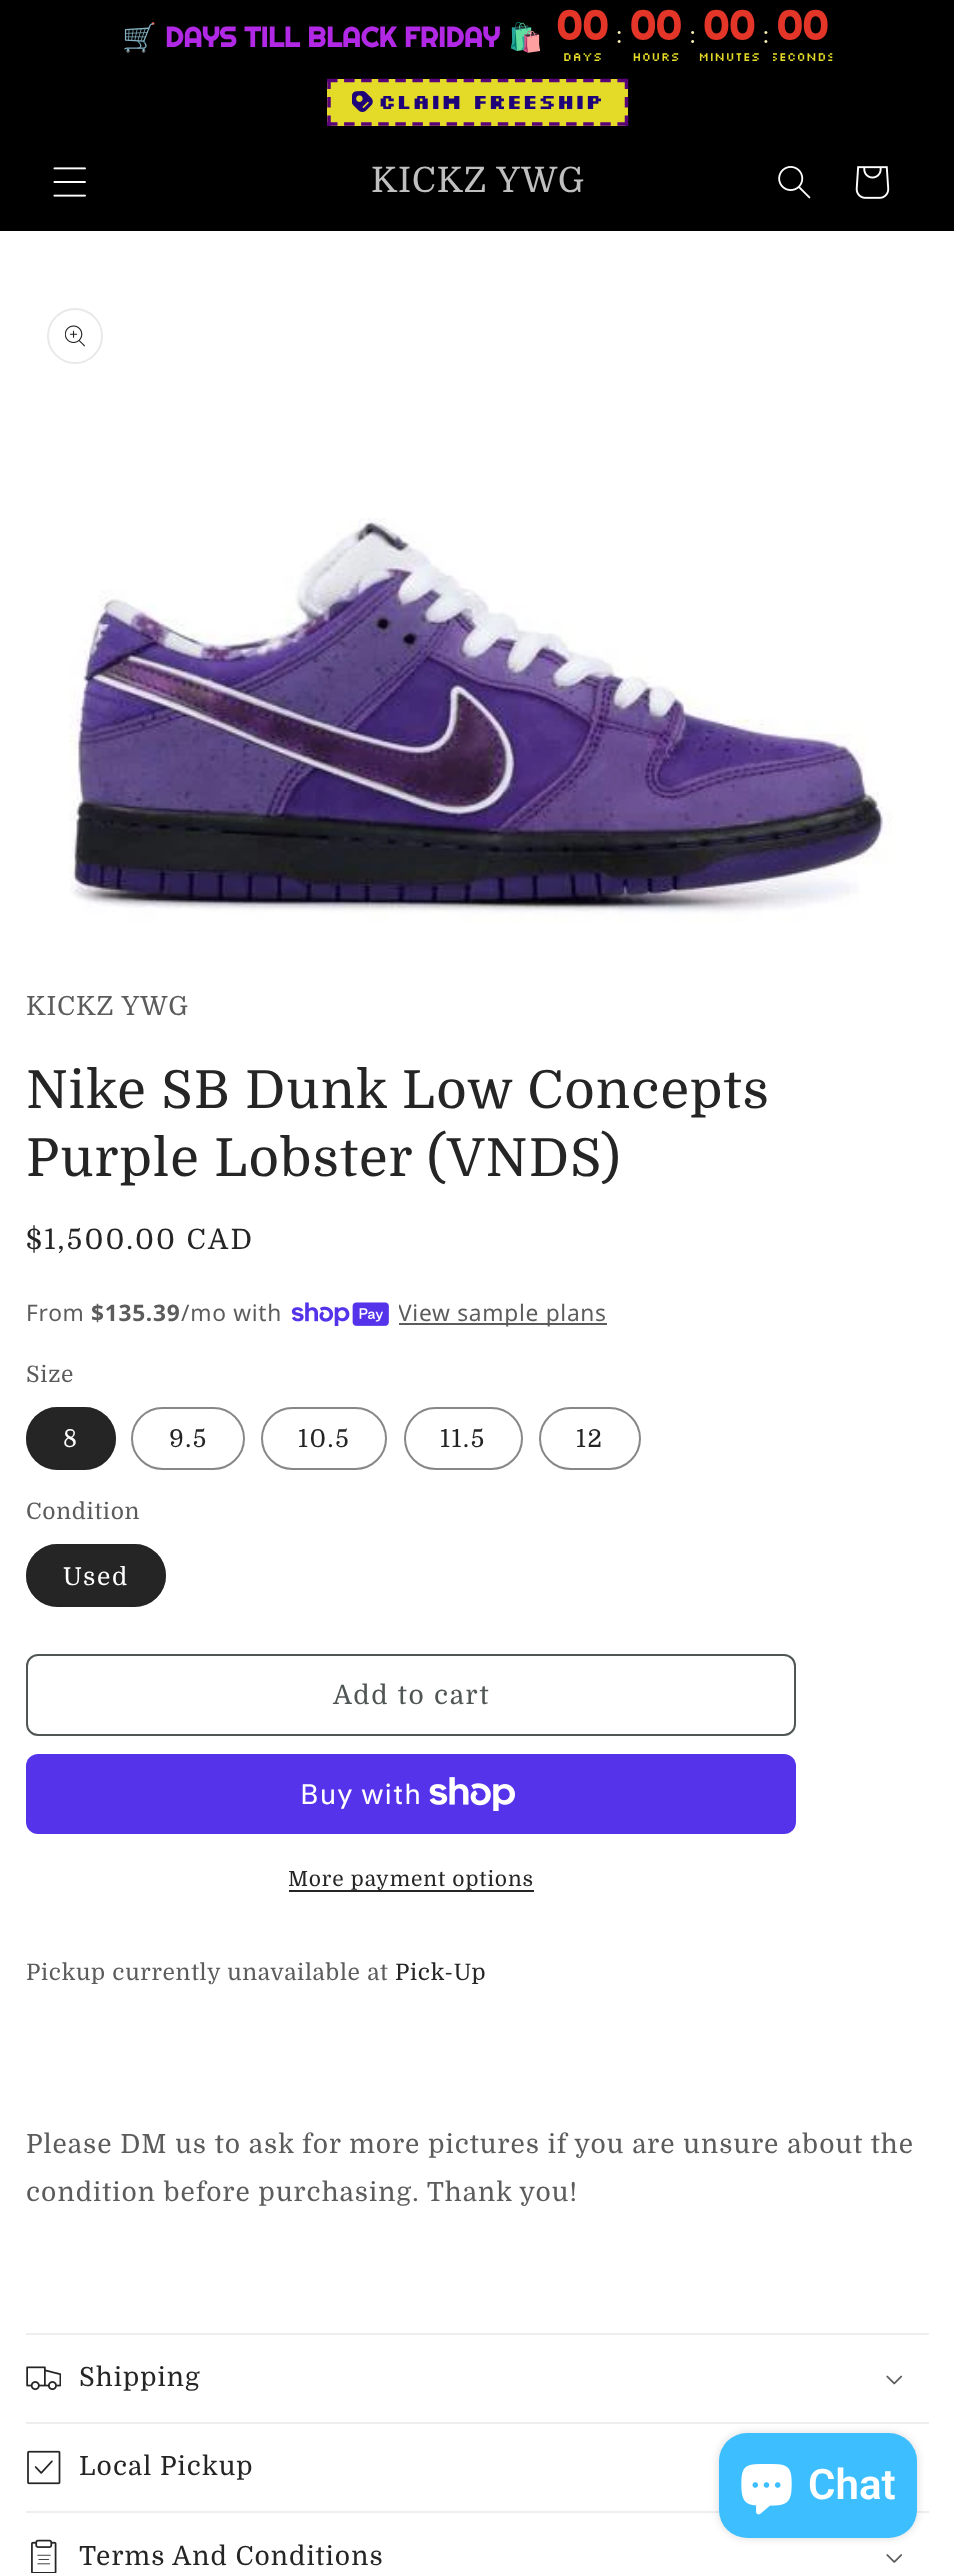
<!DOCTYPE html>
<meta charset="utf-8">
<style>body { margin: 0 } canvas { display: block }</style>
<canvas id="canvas" width="954" height="2573"></canvas>
<script type="module">
  const canvas = document.getElementById("canvas");
  const ctx = canvas.getContext("2d");
  ctx.miterLimit = 4;
  ctx.fontKerning = "normal";
  async function loadImage(src) {
    const img = new Image();
    img.src = src;
    await img.decode();
    return img;
  }

  ctx.fillStyle = "#ffffff";
  ctx.fillRect(0, 0, 954, 2573);
  ctx.fillStyle = "#000000";
  ctx.fillRect(0, 0, 954, 231);
  ctx.font = "bold 28px Noto Color Emoji";
  ctx.fillStyle = "#b129e4";
  ctx.fillText("🛒", 122, 47);
  ctx.font = "bold 28px Righteous";
  ctx.fillText("DAYS TILL BLACK FRIDAY", 165, 47);
  ctx.font = "bold 28px Noto Color Emoji";
  ctx.fillText("🛍", 508, 47);
  ctx.drawImage(await loadImage("img1.png"), 557, 9, 276, 52);
  ctx.fillStyle = "#e4db29";
  ctx.fillRect(327, 79, 301, 47);
  ctx.beginPath();
  ctx.moveTo(327, 80.5);
  ctx.lineTo(628, 80.5);
  ctx.strokeStyle = "#590379";
  ctx.lineWidth = 3.5;
  ctx.setLineDash([10.5, 6.58]);
  ctx.stroke();
  ctx.beginPath();
  ctx.moveTo(626.5, 79);
  ctx.lineTo(626.5, 89);
  ctx.moveTo(626.5, 97);
  ctx.lineTo(626.5, 107.5);
  ctx.moveTo(626.5, 115.5);
  ctx.lineTo(626.5, 126);
  ctx.setLineDash([]);
  ctx.stroke();
  ctx.beginPath();
  ctx.moveTo(327, 124);
  ctx.lineTo(628, 124);
  ctx.setLineDash([10.5, 6.58]);
  ctx.stroke();
  ctx.beginPath();
  ctx.moveTo(329, 79);
  ctx.lineTo(329, 89);
  ctx.moveTo(329, 97);
  ctx.lineTo(329, 107.5);
  ctx.moveTo(329, 115.5);
  ctx.lineTo(329, 126);
  ctx.setLineDash([]);
  ctx.stroke();
  ctx.drawImage(await loadImage("img2.png"), 352, 91, 21, 21);
  ctx.font = "bold 21px Silkscreen";
  ctx.fillStyle = "#1e0379";
  ctx.fillText("CLAIM FREESHIP", 378, 109);
  ctx.drawImage(await loadImage("img3.png"), 53, 167, 33, 30);
  ctx.letterSpacing = "1.05px";
  ctx.font = "35px Domine";
  ctx.fillStyle = "#bfbfbf";
  ctx.fillText("KICKZ YWG", 371, 192);
  ctx.drawImage(await loadImage("img4.png"), 778, 166, 33, 33);
  ctx.drawImage(await loadImage("img5.png"), 855, 166, 35, 33);
  ctx.beginPath();
  ctx.arc(75, 336, 27, 0, Math.PI * 2);
  ctx.strokeStyle = "#e9e9e9";
  ctx.lineWidth = 2;
  ctx.stroke();
  ctx.drawImage(await loadImage("img6.png"), 65, 325, 20, 22);
  ctx.drawImage(await loadImage("img7.png"), 69, 518, 824, 404);
  ctx.font = "26.25px Domine";
  ctx.fillStyle = "#5c5c5c";
  ctx.fillText("KICKZ YWG", 26, 1015);
  ctx.font = "52.5px Domine";
  ctx.fillStyle = "#252525";
  ctx.fillText("Nike SB Dunk Low Concepts", 26, 1108);
  ctx.fillText("Purple Lobster (VNDS)", 26, 1176);
  ctx.letterSpacing = "2.25px";
  ctx.font = "28px Domine";
  ctx.fillText("$1,500.00 CAD", 26, 1249);
  ctx.letterSpacing = "0.7px";
  ctx.font = "22.75px Noto Sans";
  ctx.fillStyle = "#5c5c5c";
  ctx.fillText("From", 26, 1321);
  ctx.font = "bold 22.75px Noto Sans";
  ctx.fillText("$135.39", 91, 1321);
  ctx.font = "22.75px Noto Sans";
  ctx.fillText("/mo with", 181, 1321);
  ctx.drawImage(await loadImage("img8.png"), 291, 1302, 98, 24);
  ctx.fillRect(399, 1323, 208, 2);
  ctx.save();
  ctx.beginPath();
  ctx.rect(399, 1297, 208, 33);
  ctx.clip();
  ctx.fillText("View sample plans", 398, 1321);
  ctx.restore();
  ctx.font = "22.75px Domine";
  ctx.fillText("Size", 26, 1382);
  ctx.fillStyle = "#252525";
  ctx.beginPath();
  ctx.roundRect(26, 1407, 90, 63, 31.5);
  ctx.fill();
  ctx.beginPath();
  ctx.roundRect(27, 1408, 88, 61, 30.5);
  ctx.strokeStyle = "rgba(37, 37, 37, 0.55)";
  ctx.stroke();
  ctx.letterSpacing = "1.75px";
  ctx.font = "24.5px Domine";
  ctx.fillStyle = "#ffffff";
  ctx.fillText("8", 63, 1447);
  ctx.beginPath();
  ctx.roundRect(132, 1408, 112, 61, 30.5);
  ctx.strokeStyle = "#878787";
  ctx.stroke();
  ctx.fillStyle = "#252525";
  ctx.fillText("9.5", 169, 1447);
  ctx.beginPath();
  ctx.roundRect(262, 1408, 124, 61, 30.5);
  ctx.stroke();
  ctx.fillText("10.5", 298, 1447);
  ctx.beginPath();
  ctx.roundRect(405, 1408, 117, 61, 30.5);
  ctx.stroke();
  ctx.fillText("11.5", 440, 1447);
  ctx.beginPath();
  ctx.roundRect(540, 1408, 100, 61, 30.5);
  ctx.stroke();
  ctx.fillText("12", 576, 1447);
  ctx.letterSpacing = "0.7px";
  ctx.font = "22.75px Domine";
  ctx.fillStyle = "#5c5c5c";
  ctx.fillText("Condition", 26, 1519);
  ctx.fillStyle = "#252525";
  ctx.beginPath();
  ctx.roundRect(26, 1544, 140, 63, 31.5);
  ctx.fill();
  ctx.beginPath();
  ctx.roundRect(27, 1545, 138, 61, 30.5);
  ctx.strokeStyle = "rgba(37, 37, 37, 0.55)";
  ctx.stroke();
  ctx.letterSpacing = "1.75px";
  ctx.font = "24.5px Domine";
  ctx.fillStyle = "#ffffff";
  ctx.fillText("Used", 63, 1585);
  ctx.beginPath();
  ctx.roundRect(27, 1655, 768, 80, 11);
  ctx.strokeStyle = "#505655";
  ctx.stroke();
  ctx.font = "26.25px Domine";
  ctx.fillStyle = "#505655";
  ctx.fillText("Add to cart", 333, 1704);
  ctx.fillStyle = "#5433eb";
  ctx.beginPath();
  ctx.roundRect(26, 1754, 770, 80, 12);
  ctx.fill();
  ctx.letterSpacing = "1.05px";
  ctx.font = "28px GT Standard";
  ctx.fillStyle = "#ffffff";
  ctx.fillText("Buy with", 300, 1804);
  ctx.drawImage(await loadImage("img9.png"), 429, 1777, 86, 34);
  ctx.letterSpacing = "0.9px";
  ctx.font = "21px Domine";
  ctx.fillStyle = "#252525";
  ctx.fillText("More payment options", 288, 1886);
  ctx.fillRect(289, 1890, 245, 2);
  ctx.letterSpacing = "0.7px";
  ctx.font = "22.75px Domine";
  ctx.fillStyle = "#5c5c5c";
  ctx.fillText("Pickup currently unavailable at", 26, 1980);
  ctx.fillStyle = "#252525";
  ctx.fillText("Pick-Up", 395, 1980);
  ctx.letterSpacing = "1.05px";
  ctx.font = "26.25px Domine";
  ctx.fillStyle = "#5c5c5c";
  ctx.fillText("Please DM us to ask for more pictures if you are unsure about the", 26, 2153);
  ctx.fillText("condition before purchasing. Thank you!", 26, 2201);
  ctx.fillStyle = "#eeeeee";
  ctx.fillRect(26, 2333, 903, 2);
  ctx.fillRect(26, 2422, 903, 2);
  ctx.drawImage(await loadImage("img10.png"), 26, 2366, 35, 25);
  ctx.fillStyle = "#252525";
  ctx.fillText("Shipping", 79, 2386);
  ctx.drawImage(await loadImage("img11.png"), 886, 2375, 17, 10);
  ctx.fillStyle = "#eeeeee";
  ctx.fillRect(26, 2511, 903, 2);
  ctx.drawImage(await loadImage("img12.png"), 27, 2450, 34, 35);
  ctx.fillStyle = "#252525";
  ctx.fillText("Local Pickup", 79, 2475);
  ctx.drawImage(await loadImage("img13.png"), 31, 2539, 26, 34);
  ctx.fillText("Terms And Conditions", 79, 2565);
  ctx.drawImage(await loadImage("img14.png"), 886, 2554, 16, 9);
  ctx.fillStyle = "rgba(0, 0, 0, 0.15)";
  ctx.filter = "blur(4.5px)";
  ctx.beginPath();
  ctx.roundRect(719, 2433, 198, 105, 28);
  ctx.fill();
  ctx.filter = "none";
  ctx.fillStyle = "#3dbfff";
  ctx.beginPath();
  ctx.roundRect(719, 2433, 198, 105, 28);
  ctx.fill();
  ctx.drawImage(await loadImage("img15.png"), 741, 2464, 51, 51);
  ctx.letterSpacing = "0px";
  ctx.font = "600 42px Roboto";
  ctx.fillStyle = "#ffffff";
  ctx.fillText("Chat", 808, 2499);
</script>
